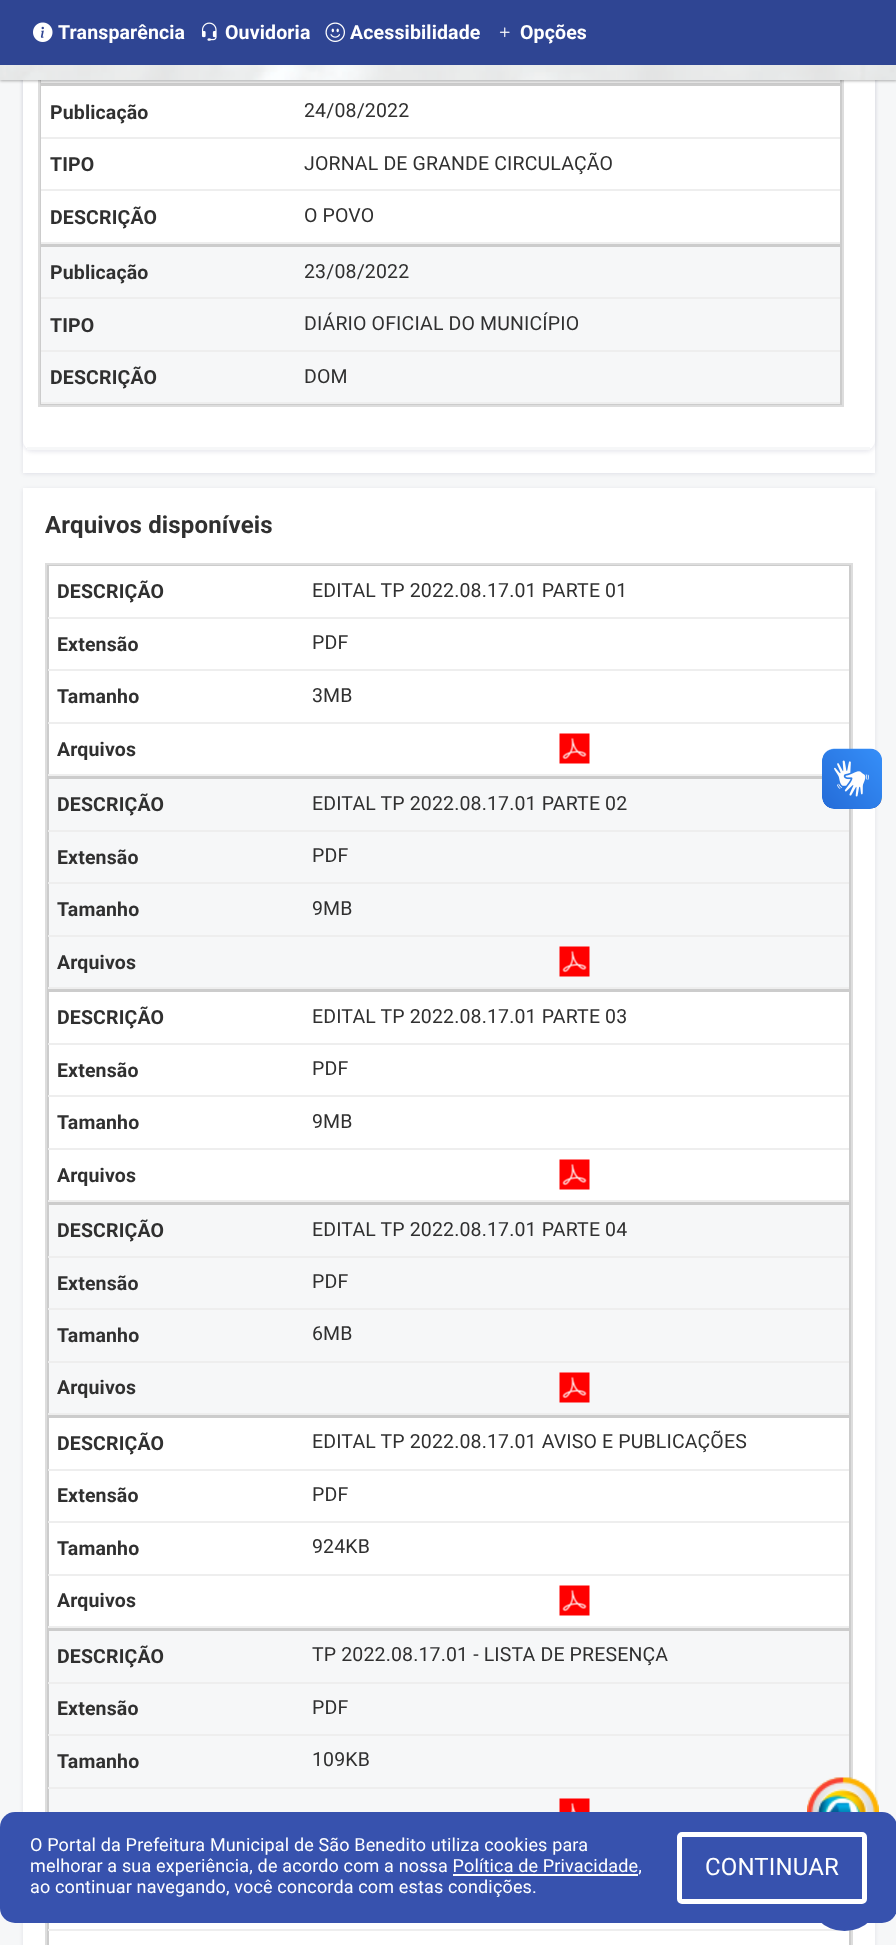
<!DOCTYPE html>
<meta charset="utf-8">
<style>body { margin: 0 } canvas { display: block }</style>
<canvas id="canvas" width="896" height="1945"></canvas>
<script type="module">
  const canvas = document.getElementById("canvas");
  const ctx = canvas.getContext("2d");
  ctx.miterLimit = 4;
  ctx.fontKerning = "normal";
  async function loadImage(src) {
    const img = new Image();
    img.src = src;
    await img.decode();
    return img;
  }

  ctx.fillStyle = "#f6f7f8";
  ctx.fillRect(0, 0, 896, 1945);
  ctx.fillStyle = "rgba(3, 0, 71, 0.09)";
  ctx.filter = "blur(2px)";
  ctx.beginPath();
  ctx.rect(23, -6, 852, 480);
  ctx.fill();
  ctx.filter = "none";
  ctx.fillStyle = "#ffffff";
  ctx.fillRect(23, 441, 852, 32);
  ctx.fillStyle = "rgba(3, 0, 71, 0.09)";
  ctx.filter = "blur(2px)";
  ctx.beginPath();
  ctx.roundRect(23, -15, 852, 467, 9);
  ctx.fill();
  ctx.filter = "none";
  ctx.fillStyle = "#ffffff";
  ctx.beginPath();
  ctx.roundRect(23, -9, 852, 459, 9);
  ctx.fill();
  ctx.fillStyle = "#dddddd";
  ctx.fillRect(842, 80, 2, 327);
  ctx.fillRect(38, 405, 805, 2);
  ctx.fillStyle = "#f6f7f8";
  ctx.fillRect(41, 80, 799, 1);
  ctx.strokeStyle = "#cccccc";
  ctx.lineWidth = 2;
  ctx.strokeRect(40, -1, 801, 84);
  ctx.strokeRect(40, 85, 801, 159);
  ctx.fillRect(41, 247, 799, 155);
  ctx.strokeRect(40, 246, 801, 158);
  ctx.fillStyle = "#dddddd";
  ctx.fillRect(38, 80, 2, 327);
  ctx.fillStyle = "#eeeeee";
  ctx.fillRect(41, 81, 799, 2);
  ctx.fillStyle = "rgba(0, 0, 0, 0.3)";
  ctx.filter = "blur(1.5px)";
  ctx.beginPath();
  ctx.rect(0, 2, 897, 79);
  ctx.fill();
  ctx.filter = "none";
  ctx.drawImage(await loadImage("img1.png"), 0, 65, 896, 15);
  ctx.fillStyle = "#2f4593";
  ctx.fillRect(0, 0, 896, 65);
  ctx.drawImage(await loadImage("img2.png"), 33, 22, 20, 20);
  ctx.letterSpacing = "0.15px";
  ctx.font = "bold 19.5px Roboto";
  ctx.fillStyle = "#ffffff";
  ctx.fillText("Transparência", 58, 39);
  ctx.drawImage(await loadImage("img3.png"), 201, 22, 16, 19);
  ctx.fillText("Ouvidoria", 225, 39);
  ctx.drawImage(await loadImage("img4.png"), 325, 22, 20, 20);
  ctx.fillText("Acessibilidade", 350, 39);
  ctx.drawImage(await loadImage("img5.png"), 499, 27, 11, 11);
  ctx.fillText("Opções", 520, 39);
  ctx.fillStyle = "#f6f7f8";
  ctx.fillRect(27, 447, 843, 3);
  ctx.fillStyle = "#eeeeee";
  ctx.fillRect(41, 137, 799, 2);
  ctx.fillStyle = "#303030";
  ctx.fillText("Publicação", 50, 119);
  ctx.font = "19.5px Roboto";
  ctx.fillText("24/08/2022", 304, 117);
  ctx.fillStyle = "#eeeeee";
  ctx.fillRect(41, 189, 799, 2);
  ctx.font = "bold 19.5px Roboto";
  ctx.fillStyle = "#303030";
  ctx.fillText("TIPO", 50, 171);
  ctx.font = "19.5px Roboto";
  ctx.fillText("JORNAL DE GRANDE CIRCULAÇÃO", 304, 170);
  ctx.fillStyle = "#eeeeee";
  ctx.fillRect(41, 242, 799, 2);
  ctx.font = "bold 19.5px Roboto";
  ctx.fillStyle = "#303030";
  ctx.fillText("DESCRIÇÃO", 50, 224);
  ctx.font = "19.5px Roboto";
  ctx.fillText("O POVO", 304, 222);
  ctx.fillStyle = "#eeeeee";
  ctx.fillRect(41, 297, 799, 2);
  ctx.font = "bold 19.5px Roboto";
  ctx.fillStyle = "#303030";
  ctx.fillText("Publicação", 50, 279);
  ctx.font = "19.5px Roboto";
  ctx.fillText("23/08/2022", 304, 278);
  ctx.fillStyle = "#eeeeee";
  ctx.fillRect(41, 350, 799, 2);
  ctx.font = "bold 19.5px Roboto";
  ctx.fillStyle = "#303030";
  ctx.fillText("TIPO", 50, 332);
  ctx.font = "19.5px Roboto";
  ctx.fillText("DIÁRIO OFICIAL DO MUNICÍPIO", 304, 330);
  ctx.fillStyle = "#eeeeee";
  ctx.fillRect(41, 402, 799, 2);
  ctx.font = "bold 19.5px Roboto";
  ctx.fillStyle = "#303030";
  ctx.fillText("DESCRIÇÃO", 50, 384);
  ctx.font = "19.5px Roboto";
  ctx.fillText("DOM", 304, 383);
  ctx.fillStyle = "rgba(3, 0, 71, 0.09)";
  ctx.filter = "blur(2px)";
  ctx.beginPath();
  ctx.rect(23, 489, 852, 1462);
  ctx.fill();
  ctx.filter = "none";
  ctx.fillStyle = "#ffffff";
  ctx.fillRect(23, 488, 852, 1457);
  ctx.font = "bold 24px Roboto";
  ctx.fillStyle = "#303030";
  ctx.fillText("Arquivos disponíveis", 45, 533);
  ctx.strokeRect(48, 565, 802, 211);
  ctx.fillStyle = "#dddddd";
  ctx.fillRect(45, 563, 807, 2);
  ctx.fillRect(851, 563, 2, 1382);
  ctx.fillRect(45, 563, 2, 1382);
  ctx.fillStyle = "#eeeeee";
  ctx.fillRect(48, 617, 801, 2);
  ctx.font = "bold 19.5px Roboto";
  ctx.fillStyle = "#303030";
  ctx.fillText("DESCRIÇÃO", 57, 598);
  ctx.font = "19.5px Roboto";
  ctx.fillText("EDITAL TP 2022.08.17.01 PARTE 01", 312, 597);
  ctx.fillStyle = "#eeeeee";
  ctx.fillRect(48, 669, 801, 2);
  ctx.font = "bold 19.5px Roboto";
  ctx.fillStyle = "#303030";
  ctx.fillText("Extensão", 57, 651);
  ctx.font = "19.5px Roboto";
  ctx.fillText("PDF", 312, 649);
  ctx.fillStyle = "#eeeeee";
  ctx.fillRect(48, 722, 801, 2);
  ctx.font = "bold 19.5px Roboto";
  ctx.fillStyle = "#303030";
  ctx.fillText("Tamanho", 57, 703);
  ctx.font = "19.5px Roboto";
  ctx.fillText("3MB", 312, 702);
  ctx.fillStyle = "#eeeeee";
  ctx.fillRect(48, 774, 774, 2);
  ctx.font = "bold 19.5px Roboto";
  ctx.fillStyle = "#303030";
  ctx.fillText("Arquivos", 57, 756);
  ctx.drawImage(await loadImage("img6.png"), 559, 733, 31, 31);
  ctx.fillStyle = "#f6f7f8";
  ctx.fillRect(49, 779, 800, 208);
  ctx.strokeRect(48, 778, 802, 211);
  ctx.fillStyle = "#eeeeee";
  ctx.fillRect(48, 830, 801, 2);
  ctx.fillStyle = "#303030";
  ctx.fillText("DESCRIÇÃO", 57, 811);
  ctx.font = "19.5px Roboto";
  ctx.fillText("EDITAL TP 2022.08.17.01 PARTE 02", 312, 810);
  ctx.fillStyle = "#eeeeee";
  ctx.fillRect(48, 882, 801, 2);
  ctx.font = "bold 19.5px Roboto";
  ctx.fillStyle = "#303030";
  ctx.fillText("Extensão", 57, 864);
  ctx.font = "19.5px Roboto";
  ctx.fillText("PDF", 312, 862);
  ctx.fillStyle = "#eeeeee";
  ctx.fillRect(48, 935, 801, 2);
  ctx.font = "bold 19.5px Roboto";
  ctx.fillStyle = "#303030";
  ctx.fillText("Tamanho", 57, 916);
  ctx.font = "19.5px Roboto";
  ctx.fillText("9MB", 312, 915);
  ctx.fillStyle = "#eeeeee";
  ctx.fillRect(48, 987, 801, 2);
  ctx.font = "bold 19.5px Roboto";
  ctx.fillStyle = "#303030";
  ctx.fillText("Arquivos", 57, 969);
  ctx.drawImage(await loadImage("img7.png"), 559, 946, 31, 31);
  ctx.strokeRect(48, 991, 802, 211);
  ctx.fillStyle = "#eeeeee";
  ctx.fillRect(48, 1043, 801, 2);
  ctx.fillStyle = "#303030";
  ctx.fillText("DESCRIÇÃO", 57, 1024);
  ctx.font = "19.5px Roboto";
  ctx.fillText("EDITAL TP 2022.08.17.01 PARTE 03", 312, 1023);
  ctx.fillStyle = "#eeeeee";
  ctx.fillRect(48, 1095, 801, 2);
  ctx.font = "bold 19.5px Roboto";
  ctx.fillStyle = "#303030";
  ctx.fillText("Extensão", 57, 1077);
  ctx.font = "19.5px Roboto";
  ctx.fillText("PDF", 312, 1075);
  ctx.fillStyle = "#eeeeee";
  ctx.fillRect(48, 1148, 801, 2);
  ctx.font = "bold 19.5px Roboto";
  ctx.fillStyle = "#303030";
  ctx.fillText("Tamanho", 57, 1129);
  ctx.font = "19.5px Roboto";
  ctx.fillText("9MB", 312, 1128);
  ctx.fillStyle = "#eeeeee";
  ctx.fillRect(48, 1200, 801, 2);
  ctx.font = "bold 19.5px Roboto";
  ctx.fillStyle = "#303030";
  ctx.fillText("Arquivos", 57, 1182);
  ctx.drawImage(await loadImage("img6.png"), 559, 1159, 31, 31);
  ctx.fillStyle = "#f6f7f8";
  ctx.fillRect(49, 1205, 800, 208);
  ctx.strokeRect(48, 1204, 802, 211);
  ctx.fillStyle = "#eeeeee";
  ctx.fillRect(48, 1256, 801, 2);
  ctx.fillStyle = "#303030";
  ctx.fillText("DESCRIÇÃO", 57, 1237);
  ctx.font = "19.5px Roboto";
  ctx.fillText("EDITAL TP 2022.08.17.01 PARTE 04", 312, 1236);
  ctx.fillStyle = "#eeeeee";
  ctx.fillRect(48, 1308, 801, 2);
  ctx.font = "bold 19.5px Roboto";
  ctx.fillStyle = "#303030";
  ctx.fillText("Extensão", 57, 1290);
  ctx.font = "19.5px Roboto";
  ctx.fillText("PDF", 312, 1288);
  ctx.fillStyle = "#eeeeee";
  ctx.fillRect(48, 1361, 801, 2);
  ctx.font = "bold 19.5px Roboto";
  ctx.fillStyle = "#303030";
  ctx.fillText("Tamanho", 57, 1342);
  ctx.font = "19.5px Roboto";
  ctx.fillText("6MB", 312, 1340);
  ctx.fillStyle = "#eeeeee";
  ctx.fillRect(48, 1413, 801, 2);
  ctx.font = "bold 19.5px Roboto";
  ctx.fillStyle = "#303030";
  ctx.fillText("Arquivos", 57, 1394);
  ctx.drawImage(await loadImage("img7.png"), 559, 1372, 31, 31);
  ctx.strokeRect(48, 1417, 802, 211);
  ctx.fillStyle = "#eeeeee";
  ctx.fillRect(48, 1469, 801, 2);
  ctx.fillStyle = "#303030";
  ctx.fillText("DESCRIÇÃO", 57, 1450);
  ctx.font = "19.5px Roboto";
  ctx.fillText("EDITAL TP 2022.08.17.01 AVISO E PUBLICAÇÕES", 312, 1448);
  ctx.fillStyle = "#eeeeee";
  ctx.fillRect(48, 1521, 801, 2);
  ctx.font = "bold 19.5px Roboto";
  ctx.fillStyle = "#303030";
  ctx.fillText("Extensão", 57, 1502);
  ctx.font = "19.5px Roboto";
  ctx.fillText("PDF", 312, 1501);
  ctx.fillStyle = "#eeeeee";
  ctx.fillRect(48, 1574, 801, 2);
  ctx.font = "bold 19.5px Roboto";
  ctx.fillStyle = "#303030";
  ctx.fillText("Tamanho", 57, 1555);
  ctx.font = "19.5px Roboto";
  ctx.fillText("924KB", 312, 1553);
  ctx.fillStyle = "#eeeeee";
  ctx.fillRect(48, 1626, 801, 2);
  ctx.font = "bold 19.5px Roboto";
  ctx.fillStyle = "#303030";
  ctx.fillText("Arquivos", 57, 1607);
  ctx.drawImage(await loadImage("img6.png"), 559, 1585, 31, 31);
  ctx.fillStyle = "#f6f7f8";
  ctx.fillRect(49, 1631, 800, 181);
  ctx.strokeRect(48, 1630, 802, 211);
  ctx.fillStyle = "#eeeeee";
  ctx.fillRect(48, 1682, 801, 2);
  ctx.fillStyle = "#303030";
  ctx.fillText("DESCRIÇÃO", 57, 1663);
  ctx.font = "19.5px Roboto";
  ctx.fillText("TP 2022.08.17.01 - LISTA DE PRESENÇA", 312, 1661);
  ctx.fillStyle = "#eeeeee";
  ctx.fillRect(48, 1734, 801, 2);
  ctx.font = "bold 19.5px Roboto";
  ctx.fillStyle = "#303030";
  ctx.fillText("Extensão", 57, 1715);
  ctx.font = "19.5px Roboto";
  ctx.fillText("PDF", 312, 1714);
  ctx.fillStyle = "#eeeeee";
  ctx.fillRect(48, 1787, 772, 2);
  ctx.font = "bold 19.5px Roboto";
  ctx.fillStyle = "#303030";
  ctx.fillText("Tamanho", 57, 1768);
  ctx.font = "19.5px Roboto";
  ctx.fillText("109KB", 312, 1766);
  ctx.drawImage(await loadImage("img8.png"), 559, 1798, 31, 14);
  ctx.strokeRect(48, 1843, 802, 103);
  ctx.fillStyle = "#eeeeee";
  ctx.fillRect(48, 1929, 801, 2);
  ctx.drawImage(await loadImage("img9.png"), 822, 748, 60, 61);
  ctx.drawImage(await loadImage("img10.png"), 822, 749, 60, 60);
  ctx.drawImage(await loadImage("img11.png"), 807, 1777, 72, 35);
  ctx.fillStyle = "#3752ae";
  ctx.beginPath();
  ctx.arc(844.5, 1893.5, 37.5, 0, Math.PI * 2);
  ctx.fill();
  ctx.beginPath();
  ctx.roundRect(0, 1812, 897, 111, 15);
  ctx.fill();
  ctx.font = "18px Roboto";
  ctx.fillStyle = "#ffffff";
  ctx.fillText("O Portal da Prefeitura Municipal de São Benedito utiliza cookies para", 30, 1851);
  ctx.fillText("melhorar a sua experiência, de acordo com a nossa Política de Privacidade,", 30, 1872);
  ctx.fillRect(453, 1874, 185, 2);
  ctx.fillText("ao continuar navegando, você concorda com estas condições.", 30, 1893);
  ctx.beginPath();
  ctx.roundRect(679.5, 1834.5, 185, 67, 2.5);
  ctx.strokeStyle = "#ffffff";
  ctx.lineWidth = 5;
  ctx.stroke();
  ctx.font = "24px Roboto";
  ctx.fillText("CONTINUAR", 705, 1875);
</script>
